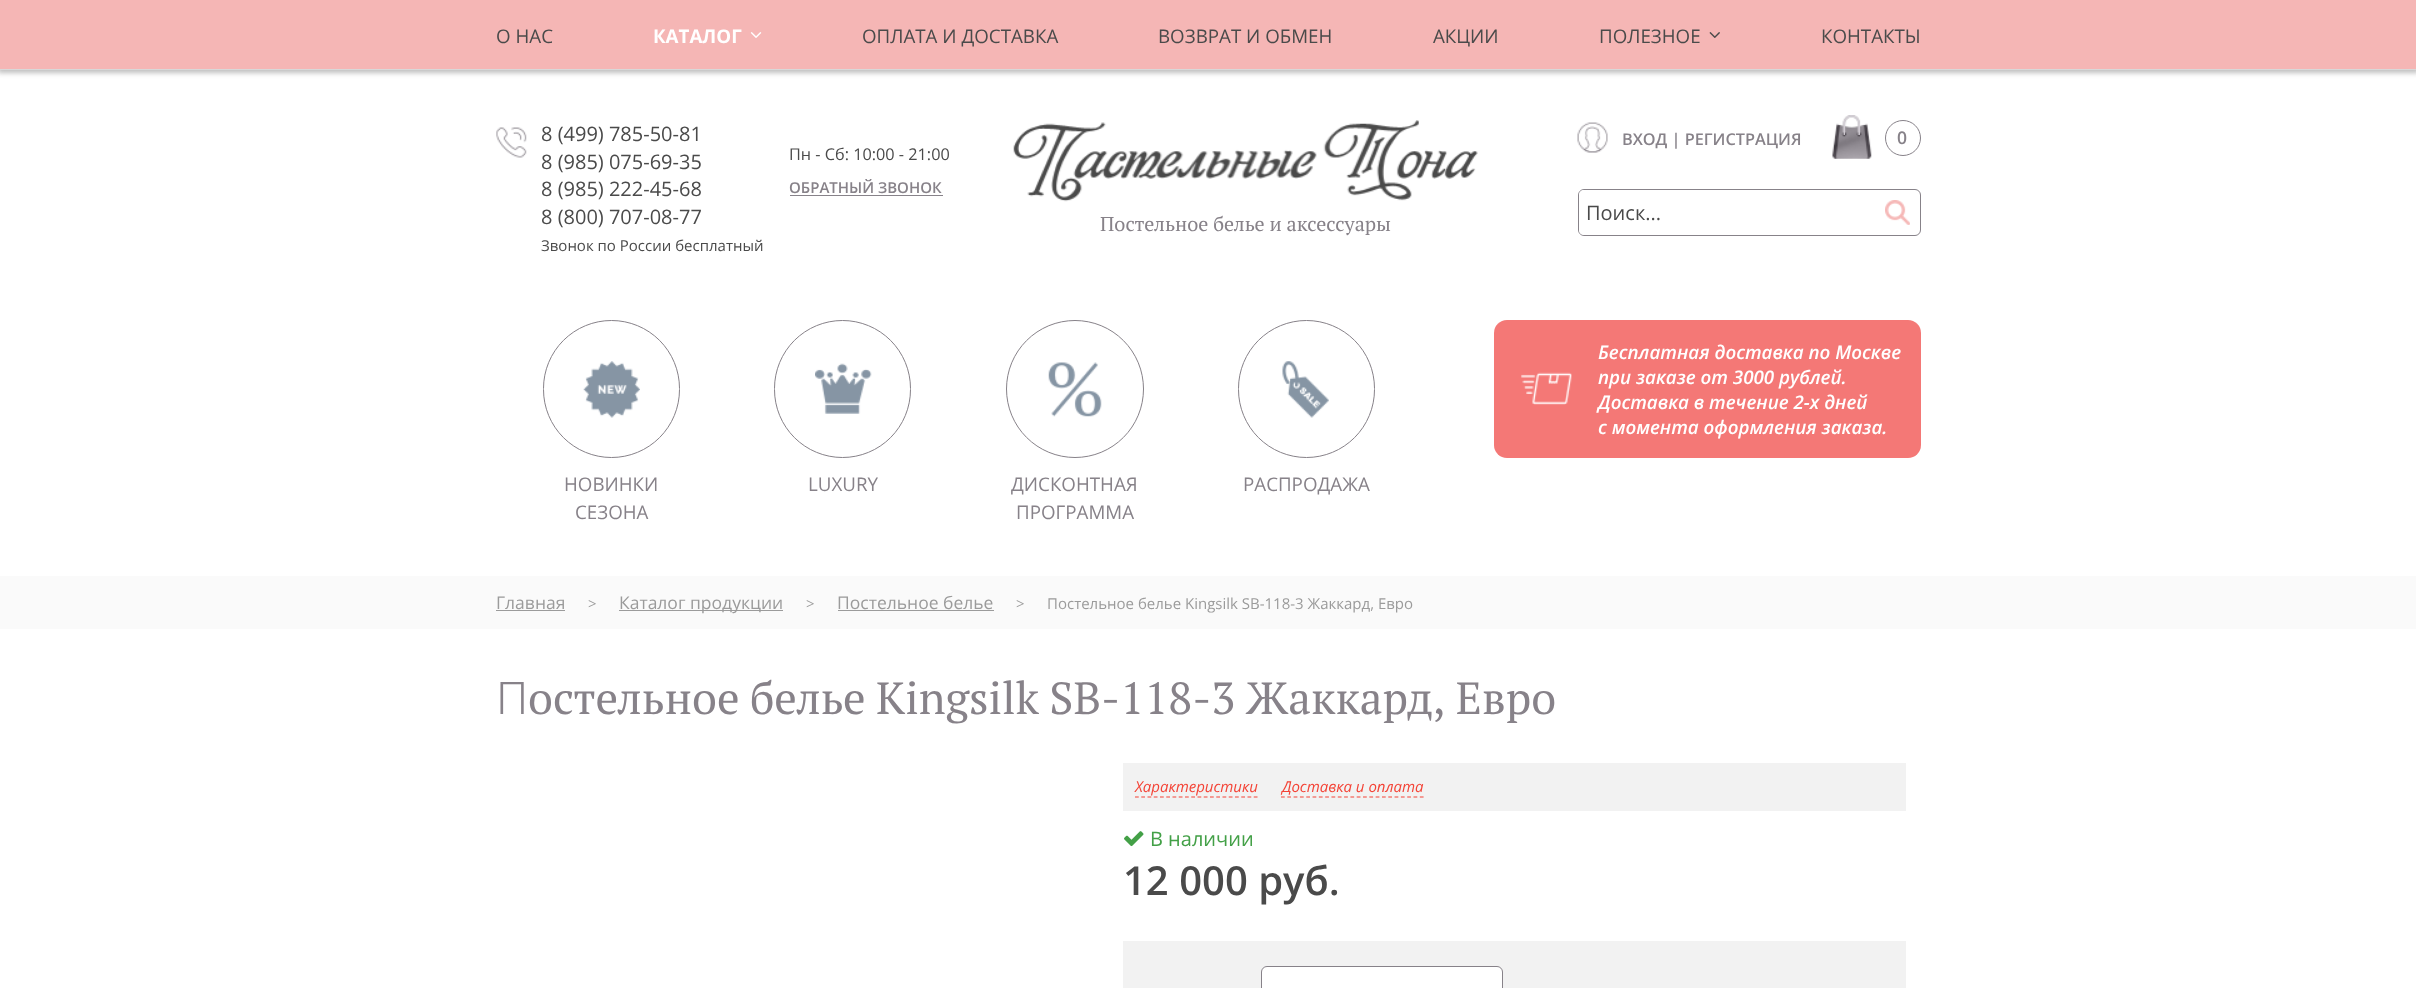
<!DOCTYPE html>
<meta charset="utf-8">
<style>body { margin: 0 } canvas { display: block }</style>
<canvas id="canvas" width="2416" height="988"></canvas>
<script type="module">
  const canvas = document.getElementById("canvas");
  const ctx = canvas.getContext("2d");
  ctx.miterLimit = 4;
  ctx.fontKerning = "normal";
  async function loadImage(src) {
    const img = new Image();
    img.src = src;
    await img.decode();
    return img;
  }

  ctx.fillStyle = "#ffffff";
  ctx.fillRect(0, 0, 2416, 988);
  ctx.fillStyle = "rgba(0, 0, 0, 0.25)";
  ctx.filter = "blur(2.5px)";
  ctx.beginPath();
  ctx.rect(-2, -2, 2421, 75);
  ctx.fill();
  ctx.filter = "none";
  ctx.fillStyle = "#f5b6b5";
  ctx.fillRect(0, 0, 2416, 69);
  ctx.fillStyle = "#d8d8d8";
  ctx.fillRect(0, 69, 2416, 1);
  ctx.font = "18.75px Open Sans";
  ctx.fillStyle = "#4a4a4a";
  ctx.fillText("О НАС", 496, 43);
  ctx.font = "bold 18.75px Open Sans";
  ctx.fillStyle = "#ffffff";
  ctx.fillText("КАТАЛОГ", 653, 43);
  ctx.drawImage(await loadImage("img1.png"), 750, 32, 12, 6);
  ctx.font = "18.75px Open Sans";
  ctx.fillStyle = "#4a4a4a";
  ctx.fillText("ОПЛАТА И ДОСТАВКА", 862, 43);
  ctx.fillText("ВОЗВРАТ И ОБМЕН", 1158, 43);
  ctx.fillText("АКЦИИ", 1433, 43);
  ctx.fillText("ПОЛЕЗНОЕ", 1599, 43);
  ctx.drawImage(await loadImage("img2.png"), 1709, 32, 11, 6);
  ctx.fillText("КОНТАКТЫ", 1821, 43);
  ctx.drawImage(await loadImage("img3.png"), 496, 127, 31, 31);
  ctx.font = "20px Open Sans";
  ctx.fillText("8 (499) 785-50-81", 541, 141);
  ctx.fillText("8 (985) 075-69-35", 541, 169);
  ctx.fillText("8 (985) 222-45-68", 541, 196);
  ctx.fillText("8 (800) 707-08-77", 541, 224);
  ctx.font = "15px Open Sans";
  ctx.fillText("Звонок по России бесплатный", 541, 251);
  ctx.font = "16.25px Open Sans";
  ctx.fillText("Пн - Сб: 10:00 - 21:00", 789, 160);
  ctx.font = "600 15px Open Sans";
  ctx.fillStyle = "#878289";
  ctx.fillText("ОБРАТНЫЙ ЗВОНОК", 789, 193);
  ctx.fillRect(790, 195, 153, 1);
  ctx.drawImage(await loadImage("img4.png"), 1577, 122, 31, 31);
  ctx.font = "600 16.25px Open Sans";
  ctx.fillText("ВХОД | РЕГИСТРАЦИЯ", 1622, 145);
  ctx.drawImage(await loadImage("img5.png"), 1832, 115, 40, 44);
  ctx.beginPath();
  ctx.arc(1903, 138, 17.5, 0, Math.PI * 2);
  ctx.strokeStyle = "#878289";
  ctx.stroke();
  ctx.font = "600 17.5px Open Sans";
  ctx.fillText("0", 1897, 144);
  ctx.beginPath();
  ctx.roundRect(1578.5, 189.5, 342, 46, 5.5);
  ctx.stroke();
  ctx.fillStyle = "#ffffff";
  ctx.beginPath();
  ctx.roundRect(1579, 190, 297, 45, 5);
  ctx.fill();
  ctx.font = "20px Open Sans";
  ctx.fillStyle = "#4a4a4a";
  ctx.fillText("Поиск...", 1586, 220);
  ctx.drawImage(await loadImage("img6.png"), 1885, 200, 25, 25);
  ctx.drawImage(await loadImage("img7.png"), 1013, 120, 465, 82);
  ctx.font = "20px PT Serif";
  ctx.fillStyle = "#878289";
  ctx.fillText("Постельное белье и аксессуары", 1100, 231);
  ctx.fillStyle = "#f47876";
  ctx.beginPath();
  ctx.roundRect(1494, 320, 427, 138, 13);
  ctx.fill();
  ctx.font = "italic 600 18.75px Open Sans";
  ctx.fillStyle = "#ffffff";
  ctx.fillText("Бесплатная доставка по Москве", 1598, 359);
  ctx.drawImage(await loadImage("img8.png"), 1521, 372, 51, 33);
  ctx.fillText("при заказе от 3000 рублей.", 1598, 384);
  ctx.fillText("Доставка в течение 2-х дней", 1598, 409);
  ctx.fillText("с момента оформления заказа.", 1598, 434);
  ctx.beginPath();
  ctx.roundRect(543.5, 320.5, 136, 137, 68);
  ctx.stroke();
  ctx.drawImage(await loadImage("img9.png"), 583, 361, 57, 57);
  ctx.font = "18.75px Open Sans";
  ctx.fillStyle = "#878289";
  ctx.fillText("НОВИНКИ", 564, 491);
  ctx.fillText("СЕЗОНА", 575, 519);
  ctx.beginPath();
  ctx.roundRect(774.5, 320.5, 136, 137, 68);
  ctx.stroke();
  ctx.drawImage(await loadImage("img10.png"), 815, 363, 57, 51);
  ctx.fillText("LUXURY", 808, 491);
  ctx.beginPath();
  ctx.arc(1075, 389, 68.5, 0, Math.PI * 2);
  ctx.stroke();
  ctx.drawImage(await loadImage("img11.png"), 1048, 362, 54, 55);
  ctx.fillText("ДИСКОНТНАЯ", 1011, 491);
  ctx.fillText("ПРОГРАММА", 1016, 519);
  ctx.beginPath();
  ctx.roundRect(1238.5, 320.5, 136, 137, 68);
  ctx.stroke();
  ctx.drawImage(await loadImage("img12.png"), 1282, 361, 47, 57);
  ctx.fillText("РАСПРОДАЖА", 1243, 491);
  ctx.fillStyle = "#fafafa";
  ctx.fillRect(0, 576, 2416, 53);
  ctx.font = "17.5px Open Sans";
  ctx.fillStyle = "#9b9b9b";
  ctx.fillText("Главная", 496, 609);
  ctx.fillRect(496, 610, 69, 1);
  ctx.font = "15px Open Sans";
  ctx.fillText(">", 588, 609);
  ctx.fillRect(619, 610, 164, 1);
  ctx.font = "17.5px Open Sans";
  ctx.fillText("Каталог продукции", 619, 609);
  ctx.font = "15px Open Sans";
  ctx.fillText(">", 806, 609);
  ctx.font = "17.5px Open Sans";
  ctx.fillText("Постельное белье", 837, 609);
  ctx.fillRect(838, 610, 156, 1);
  ctx.font = "15px Open Sans";
  ctx.fillText(">", 1016, 609);
  ctx.fillText("Постельное белье Kingsilk SB-118-3 Жаккард, Евро", 1047, 609);
  ctx.font = "300 45px Noto Sans";
  ctx.fillStyle = "#878289";
  ctx.fillText("П", 496, 714);
  ctx.wordSpacing = "-0.5px";
  ctx.font = "45px PT Serif";
  ctx.fillText("остельное белье Kingsilk SB-118-3 Жаккард, Евро", 528, 714);
  ctx.fillStyle = "#f2f2f2";
  ctx.fillRect(1123, 763, 783, 48);
  ctx.beginPath();
  ctx.moveTo(1135, 797);
  ctx.lineTo(1257.5, 797);
  ctx.strokeStyle = "#f44336";
  ctx.lineWidth = 1.2;
  ctx.setLineDash([3.75, 2.5]);
  ctx.stroke();
  ctx.wordSpacing = "0px";
  ctx.font = "italic 15px Open Sans";
  ctx.fillStyle = "#f44336";
  ctx.fillText("Характеристики", 1135, 792);
  ctx.beginPath();
  ctx.moveTo(1281, 797);
  ctx.lineTo(1424, 797);
  ctx.setLineDash([3.75, 2.56]);
  ctx.stroke();
  ctx.fillText("Доставка и оплата", 1282, 792);
  ctx.drawImage(await loadImage("img13.png"), 1124, 831, 20, 16);
  ctx.font = "20px Open Sans";
  ctx.fillStyle = "#43a047";
  ctx.fillText("В наличии", 1150, 846);
  ctx.font = "600 40px Open Sans";
  ctx.fillStyle = "#4a4a4a";
  ctx.fillText("12 000 руб.", 1123, 895);
  ctx.fillStyle = "#f2f2f2";
  ctx.fillRect(1123, 941, 783, 47);
  ctx.fillStyle = "#ffffff";
  ctx.beginPath();
  ctx.roundRect(1261.5, 966.5, 241, 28, 5.5);
  ctx.fill();
  ctx.strokeStyle = "#878289";
  ctx.lineWidth = 1;
  ctx.setLineDash([]);
  ctx.stroke();
</script>
